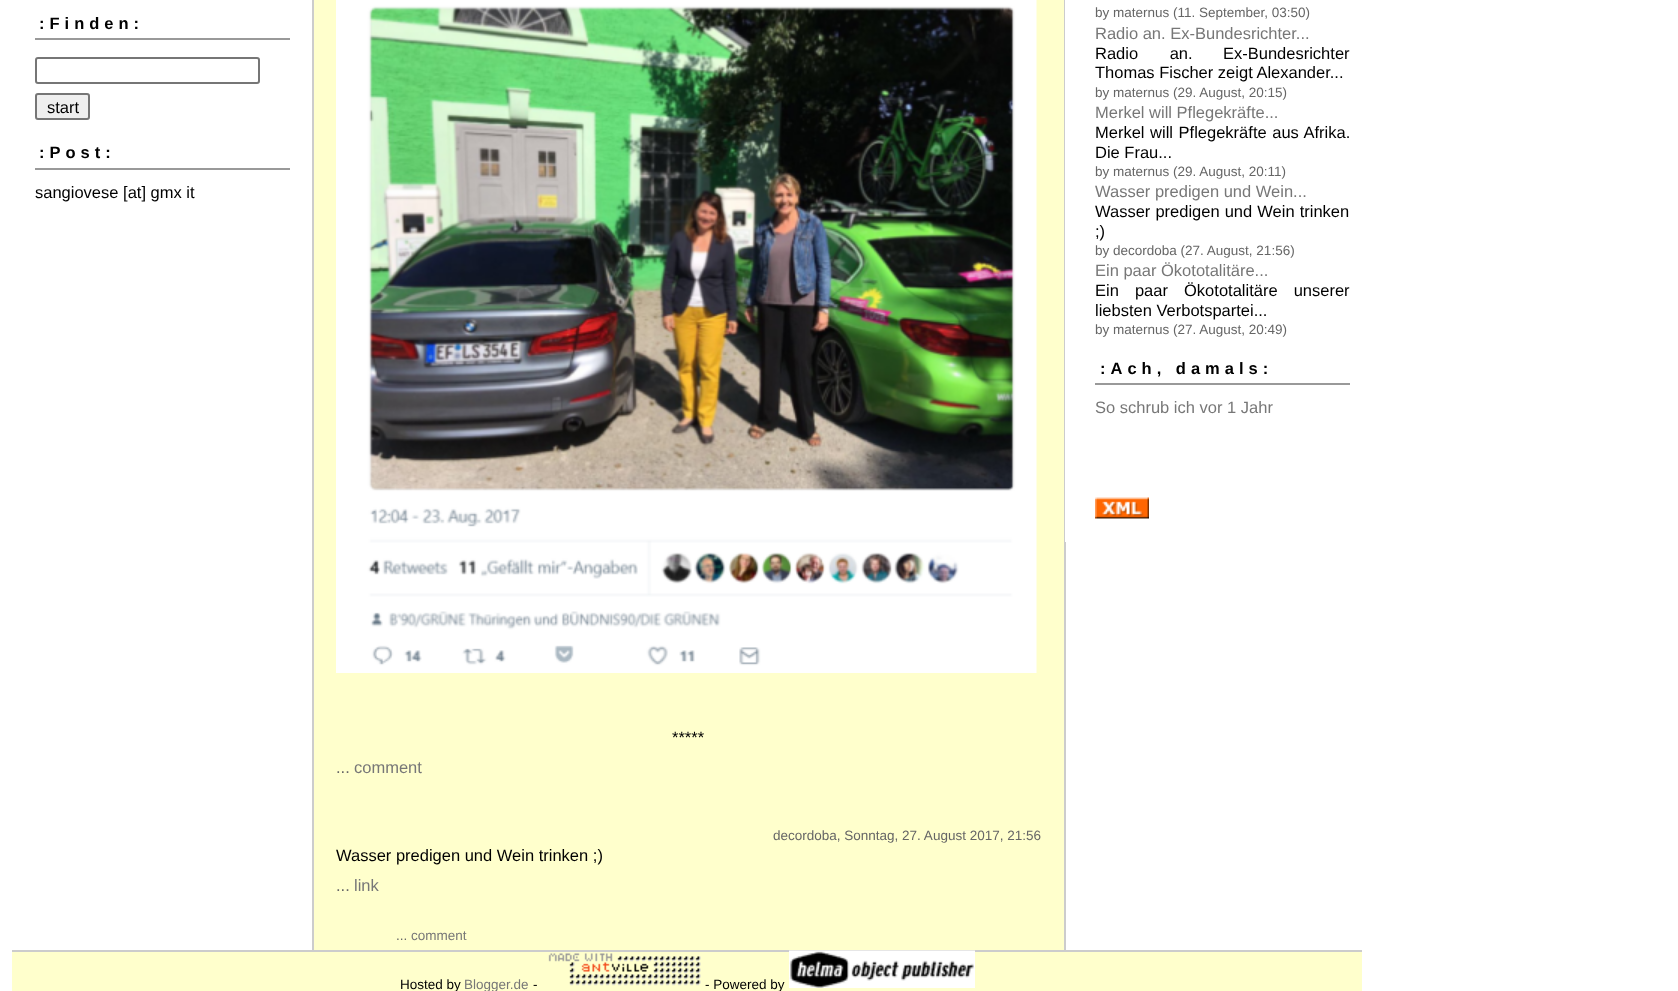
<!DOCTYPE html>
<meta charset="utf-8">
<style>body { margin: 0 } canvas { display: block }</style>
<canvas id="canvas" width="1678" height="991"></canvas>
<script type="module">
  const canvas = document.getElementById("canvas");
  const ctx = canvas.getContext("2d");
  ctx.miterLimit = 4;
  ctx.fontKerning = "normal";
  async function loadImage(src) {
    const img = new Image();
    img.src = src;
    await img.decode();
    return img;
  }

  ctx.fillStyle = "#ffffff";
  ctx.fillRect(0, 0, 1678, 991);
  ctx.fillStyle = "#999999";
  ctx.fillRect(35, 38, 255, 2);
  ctx.letterSpacing = "5px";
  ctx.font = "bold 16.5px Liberation Sans";
  ctx.fillStyle = "#000000";
  ctx.fillText(":Finden:", 39, 29);
  ctx.beginPath();
  ctx.roundRect(36, 58, 223, 25, 2);
  ctx.strokeStyle = "#767676";
  ctx.lineWidth = 2;
  ctx.stroke();
  ctx.fillStyle = "#efefef";
  ctx.beginPath();
  ctx.roundRect(36, 94, 53, 25, 2);
  ctx.fill();
  ctx.stroke();
  ctx.letterSpacing = "0px";
  ctx.font = "16.5px Liberation Sans";
  ctx.fillStyle = "#000000";
  ctx.fillText("start", 47, 113);
  ctx.fillStyle = "#999999";
  ctx.fillRect(35, 168, 255, 2);
  ctx.letterSpacing = "5px";
  ctx.font = "bold 16.5px Liberation Sans";
  ctx.fillStyle = "#000000";
  ctx.fillText(":Post:", 39, 158);
  ctx.letterSpacing = "0px";
  ctx.font = "16.5px Liberation Sans";
  ctx.fillText("sangiovese [at] gmx it", 35, 198);
  ctx.fillStyle = "#cccccc";
  ctx.fillRect(1064, 0, 2, 950);
  ctx.fillStyle = "#ffffff";
  ctx.fillRect(1065, 0, 1, 542);
  ctx.font = "13.5px Liberation Sans";
  ctx.fillStyle = "#666666";
  ctx.fillText("by maternus (11. September, 03:50)", 1095, 17);
  ctx.font = "16.5px Liberation Sans";
  ctx.fillStyle = "#777777";
  ctx.fillText("Radio an. Ex-Bundesrichter...", 1095, 39);
  ctx.wordSpacing = "27px";
  ctx.fillStyle = "#000000";
  ctx.fillText("Radio an.", 1095, 59);
  ctx.wordSpacing = "0px";
  ctx.fillText("Ex-Bundesrichter", 1223, 59);
  ctx.fillText("Thomas Fischer zeigt Alexander...", 1095, 78);
  ctx.font = "13.5px Liberation Sans";
  ctx.fillStyle = "#666666";
  ctx.fillText("by maternus (29. August, 20:15)", 1095, 97);
  ctx.font = "16.5px Liberation Sans";
  ctx.fillStyle = "#777777";
  ctx.fillText("Merkel will Pflegekräfte...", 1095, 118);
  ctx.wordSpacing = "1px";
  ctx.fillStyle = "#000000";
  ctx.fillText("Merkel will Pflegekräfte aus Afrika.", 1095, 138);
  ctx.wordSpacing = "0px";
  ctx.fillText("Die Frau...", 1095, 158);
  ctx.font = "13.5px Liberation Sans";
  ctx.fillStyle = "#666666";
  ctx.fillText("by maternus (29. August, 20:11)", 1095, 176);
  ctx.font = "16.5px Liberation Sans";
  ctx.fillStyle = "#777777";
  ctx.fillText("Wasser predigen und Wein...", 1095, 197);
  ctx.wordSpacing = "0.5px";
  ctx.fillStyle = "#000000";
  ctx.fillText("Wasser predigen und Wein trinken", 1095, 217);
  ctx.wordSpacing = "0px";
  ctx.fillText(";)", 1095, 237);
  ctx.font = "13.5px Liberation Sans";
  ctx.fillStyle = "#666666";
  ctx.fillText("by decordoba (27. August, 21:56)", 1095, 255);
  ctx.font = "16.5px Liberation Sans";
  ctx.fillStyle = "#777777";
  ctx.fillText("Ein paar Ökototalitäre...", 1095, 276);
  ctx.wordSpacing = "11.5px";
  ctx.fillStyle = "#000000";
  ctx.fillText("Ein paar Ökototalitäre unserer", 1095, 296);
  ctx.wordSpacing = "0px";
  ctx.fillText("liebsten Verbotspartei...", 1095, 316);
  ctx.font = "13.5px Liberation Sans";
  ctx.fillStyle = "#666666";
  ctx.fillText("by maternus (27. August, 20:49)", 1095, 334);
  ctx.fillStyle = "#999999";
  ctx.fillRect(1095, 383, 255, 2);
  ctx.letterSpacing = "5px";
  ctx.font = "bold 16.5px Liberation Sans";
  ctx.fillStyle = "#000000";
  ctx.fillText(":Ach, damals:", 1100, 374);
  ctx.letterSpacing = "0px";
  ctx.font = "16.5px Liberation Sans";
  ctx.fillStyle = "#777777";
  ctx.fillText("So schrub ich vor 1 Jahr", 1095, 413);
  ctx.drawImage(await loadImage("img1.png"), 1095, 497, 54, 22);
  ctx.fillStyle = "#cccccc";
  ctx.fillRect(312, 0, 2, 950);
  ctx.fillStyle = "#ffffcc";
  ctx.fillRect(314, 0, 750, 950);
  ctx.drawImage(await loadImage("img2.png"), 336, 0, 701, 673);
  ctx.fillStyle = "#000000";
  ctx.fillText("*****", 672, 743);
  ctx.fillStyle = "#666666";
  ctx.fillText("...", 336, 773);
  ctx.fillStyle = "#777777";
  ctx.fillText("comment", 354, 773);
  ctx.font = "13.5px Liberation Sans";
  ctx.fillStyle = "#666666";
  ctx.fillText("decordoba, Sonntag, 27. August 2017, 21:56", 773, 840);
  ctx.font = "16.5px Liberation Sans";
  ctx.fillStyle = "#000000";
  ctx.fillText("Wasser predigen und Wein trinken ;)", 336, 861);
  ctx.fillStyle = "#666666";
  ctx.fillText("...", 336, 891);
  ctx.fillStyle = "#777777";
  ctx.fillText("link", 354, 891);
  ctx.font = "13.5px Liberation Sans";
  ctx.fillStyle = "#666666";
  ctx.fillText("...", 396, 940);
  ctx.fillStyle = "#777777";
  ctx.fillText("comment", 411, 940);
  ctx.fillStyle = "#ffffcc";
  ctx.fillRect(12, 952, 1350, 39);
  ctx.fillStyle = "#cccccc";
  ctx.fillRect(12, 950, 1350, 2);
  ctx.fillStyle = "#000000";
  ctx.fillText("Hosted by", 400, 989);
  ctx.fillStyle = "#777777";
  ctx.fillText("Blogger.de", 464, 989);
  ctx.fillStyle = "#000000";
  ctx.fillText("-", 533, 989);
  ctx.drawImage(await loadImage("img3.png"), 548, 953, 153, 33);
  ctx.fillText("- Powered by", 705, 989);
  ctx.drawImage(await loadImage("img4.png"), 789, 950, 186, 38);
</script>
